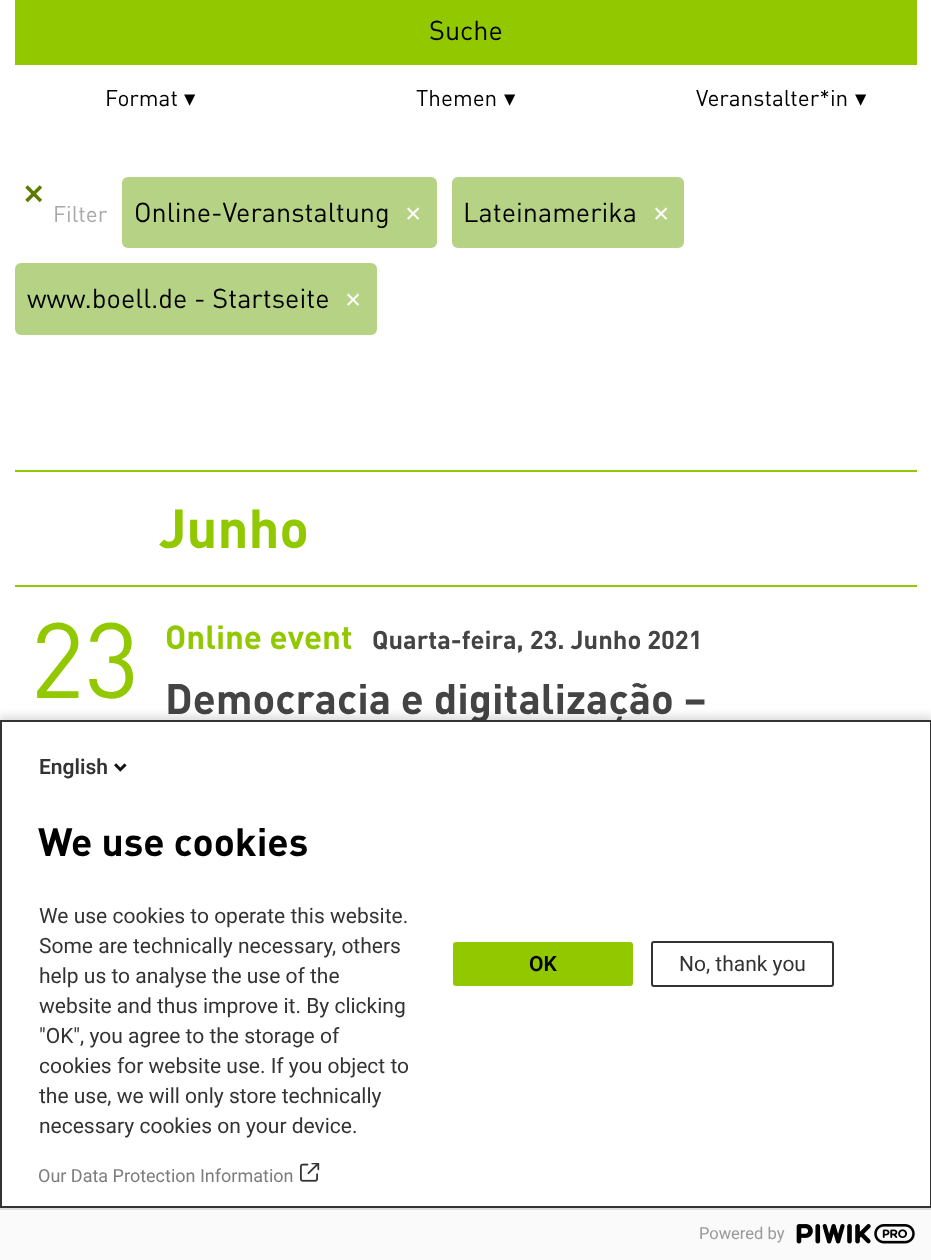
<!DOCTYPE html>
<meta charset="utf-8">
<style>body { margin: 0 } canvas { display: block }</style>
<canvas id="canvas" width="931" height="1260"></canvas>
<script type="module">
  const canvas = document.getElementById("canvas");
  const ctx = canvas.getContext("2d");
  ctx.miterLimit = 4;
  ctx.fontKerning = "normal";
  async function loadImage(src) {
    const img = new Image();
    img.src = src;
    await img.decode();
    return img;
  }

  ctx.fillStyle = "#ffffff";
  ctx.fillRect(0, 0, 931, 1260);
  ctx.fillStyle = "#91c800";
  ctx.fillRect(15, 0, 902, 65);
  ctx.font = "27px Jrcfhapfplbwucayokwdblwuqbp";
  ctx.fillStyle = "#000000";
  ctx.fillText("Suche", 429, 40);
  ctx.font = "22.5px Jrcfhapfplbwucayokwdblwuqbp";
  ctx.fillText("Format", 105, 106);
  ctx.font = "22.5px DejaVu Sans";
  ctx.fillText("▾", 184, 106);
  ctx.font = "22.5px Jrcfhapfplbwucayokwdblwuqbp";
  ctx.fillText("Themen", 416, 106);
  ctx.font = "22.5px DejaVu Sans";
  ctx.fillText("▾", 504, 106);
  ctx.font = "22.5px Jrcfhapfplbwucayokwdblwuqbp";
  ctx.fillText("Veranstalter*in", 696, 106);
  ctx.font = "22.5px DejaVu Sans";
  ctx.fillText("▾", 855, 106);
  ctx.font = "bold 27px DejaVu Sans";
  ctx.fillStyle = "#5b7a01";
  ctx.fillText("✕", 22, 204);
  ctx.font = "22.5px Jrcfhapfplbwucayokwdblwuqbp";
  ctx.fillStyle = "#a9a9a9";
  ctx.fillText("Filter", 53, 222);
  ctx.fillStyle = "#b6d284";
  ctx.beginPath();
  ctx.roundRect(122, 177, 315, 71, 6);
  ctx.fill();
  ctx.font = "27px Jrcfhapfplbwucayokwdblwuqbp";
  ctx.fillStyle = "#000000";
  ctx.fillText("Online-Veranstaltung", 134, 222);
  ctx.font = "31px Jrcfhapfplbwucayokwdblwuqbp";
  ctx.fillStyle = "#ffffff";
  ctx.fillText("×", 405, 222);
  ctx.fillStyle = "#b6d284";
  ctx.beginPath();
  ctx.roundRect(452, 177, 232, 71, 6);
  ctx.fill();
  ctx.font = "27px Jrcfhapfplbwucayokwdblwuqbp";
  ctx.fillStyle = "#000000";
  ctx.fillText("Lateinamerika", 463, 222);
  ctx.font = "31px Jrcfhapfplbwucayokwdblwuqbp";
  ctx.fillStyle = "#ffffff";
  ctx.fillText("×", 653, 222);
  ctx.fillStyle = "#b6d284";
  ctx.beginPath();
  ctx.roundRect(15, 263, 362, 72, 6);
  ctx.fill();
  ctx.font = "27px Jrcfhapfplbwucayokwdblwuqbp";
  ctx.fillStyle = "#000000";
  ctx.fillText("www.boell.de - Startseite", 27, 308);
  ctx.font = "31px Jrcfhapfplbwucayokwdblwuqbp";
  ctx.fillStyle = "#ffffff";
  ctx.fillText("×", 345, 308);
  ctx.fillStyle = "#91c800";
  ctx.fillRect(15, 470, 902, 2);
  ctx.fillRect(15, 585, 902, 2);
  ctx.font = "bold 54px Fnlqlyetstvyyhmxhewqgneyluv";
  ctx.fillText("Junho", 159, 548);
  ctx.font = "105px Jrcfhapfplbwucayokwdblwuqbp";
  ctx.fillText("23", 30, 698);
  ctx.font = "bold 33px Fnlqlyetstvyyhmxhewqgneyluv";
  ctx.fillText("Online event", 165, 649);
  ctx.font = "bold 25.5px Fnlqlyetstvyyhmxhewqgneyluv";
  ctx.fillStyle = "#444444";
  ctx.fillText("Quarta-feira, 23. Junho 2021", 372, 649);
  ctx.font = "bold 42px Fnlqlyetstvyyhmxhewqgneyluv";
  ctx.fillText("Democracia e digitalização –", 165, 714);
  ctx.fillStyle = "rgba(0, 0, 0, 0.14)";
  ctx.filter = "blur(4px)";
  ctx.beginPath();
  ctx.rect(-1, 716, 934, 543);
  ctx.fill();
  ctx.filter = "none";
  ctx.fillStyle = "#ffffff";
  ctx.beginPath();
  ctx.rect(1, 721, 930, 486);
  ctx.fill();
  ctx.strokeStyle = "#333333";
  ctx.lineWidth = 2;
  ctx.stroke();
  ctx.font = "600 21px Roboto";
  ctx.fillStyle = "#333333";
  ctx.fillText("English", 39, 774);
  ctx.drawImage(await loadImage("img1.png"), 114, 763, 13, 9);
  ctx.font = "bold 39px Fnlqlyetstvyyhmxhewqgneyluv";
  ctx.fillStyle = "#000000";
  ctx.fillText("We use cookies", 38, 856);
  ctx.font = "21px Roboto";
  ctx.fillStyle = "#333333";
  ctx.fillText("We use cookies to operate this website.", 39, 923);
  ctx.fillText("Some are technically necessary, others", 39, 953);
  ctx.fillText("help us to analyse the use of the", 39, 983);
  ctx.fillText("website and thus improve it. By clicking", 39, 1013);
  ctx.fillText("\"OK\", you agree to the storage of", 39, 1043);
  ctx.fillText("cookies for website use. If you object to", 39, 1073);
  ctx.fillText("the use, we will only store technically", 39, 1103);
  ctx.fillText("necessary cookies on your device.", 39, 1133);
  ctx.font = "18px Roboto";
  ctx.fillStyle = "#7c7c7c";
  ctx.fillText("Our Data Protection Information", 38, 1182);
  ctx.drawImage(await loadImage("img2.png"), 300, 1163, 20, 19);
  ctx.fillStyle = "#91c800";
  ctx.beginPath();
  ctx.roundRect(453, 942, 180, 44, 3);
  ctx.fill();
  ctx.font = "600 21px Roboto";
  ctx.fillStyle = "#000000";
  ctx.fillText("OK", 529, 971);
  ctx.beginPath();
  ctx.roundRect(652, 942, 181, 44, 2);
  ctx.stroke();
  ctx.font = "21px Roboto";
  ctx.fillStyle = "#333333";
  ctx.fillText("No, thank you", 679, 971);
  ctx.fillStyle = "#fafafa";
  ctx.fillRect(0, 1210, 931, 50);
  ctx.fillStyle = "#dddddd";
  ctx.fillRect(0, 1208, 931, 2);
  ctx.font = "16.5px Roboto";
  ctx.fillStyle = "#999999";
  ctx.fillText("Powered by", 699, 1239);
  ctx.drawImage(await loadImage("img3.png"), 796, 1224, 119, 20);
</script>
